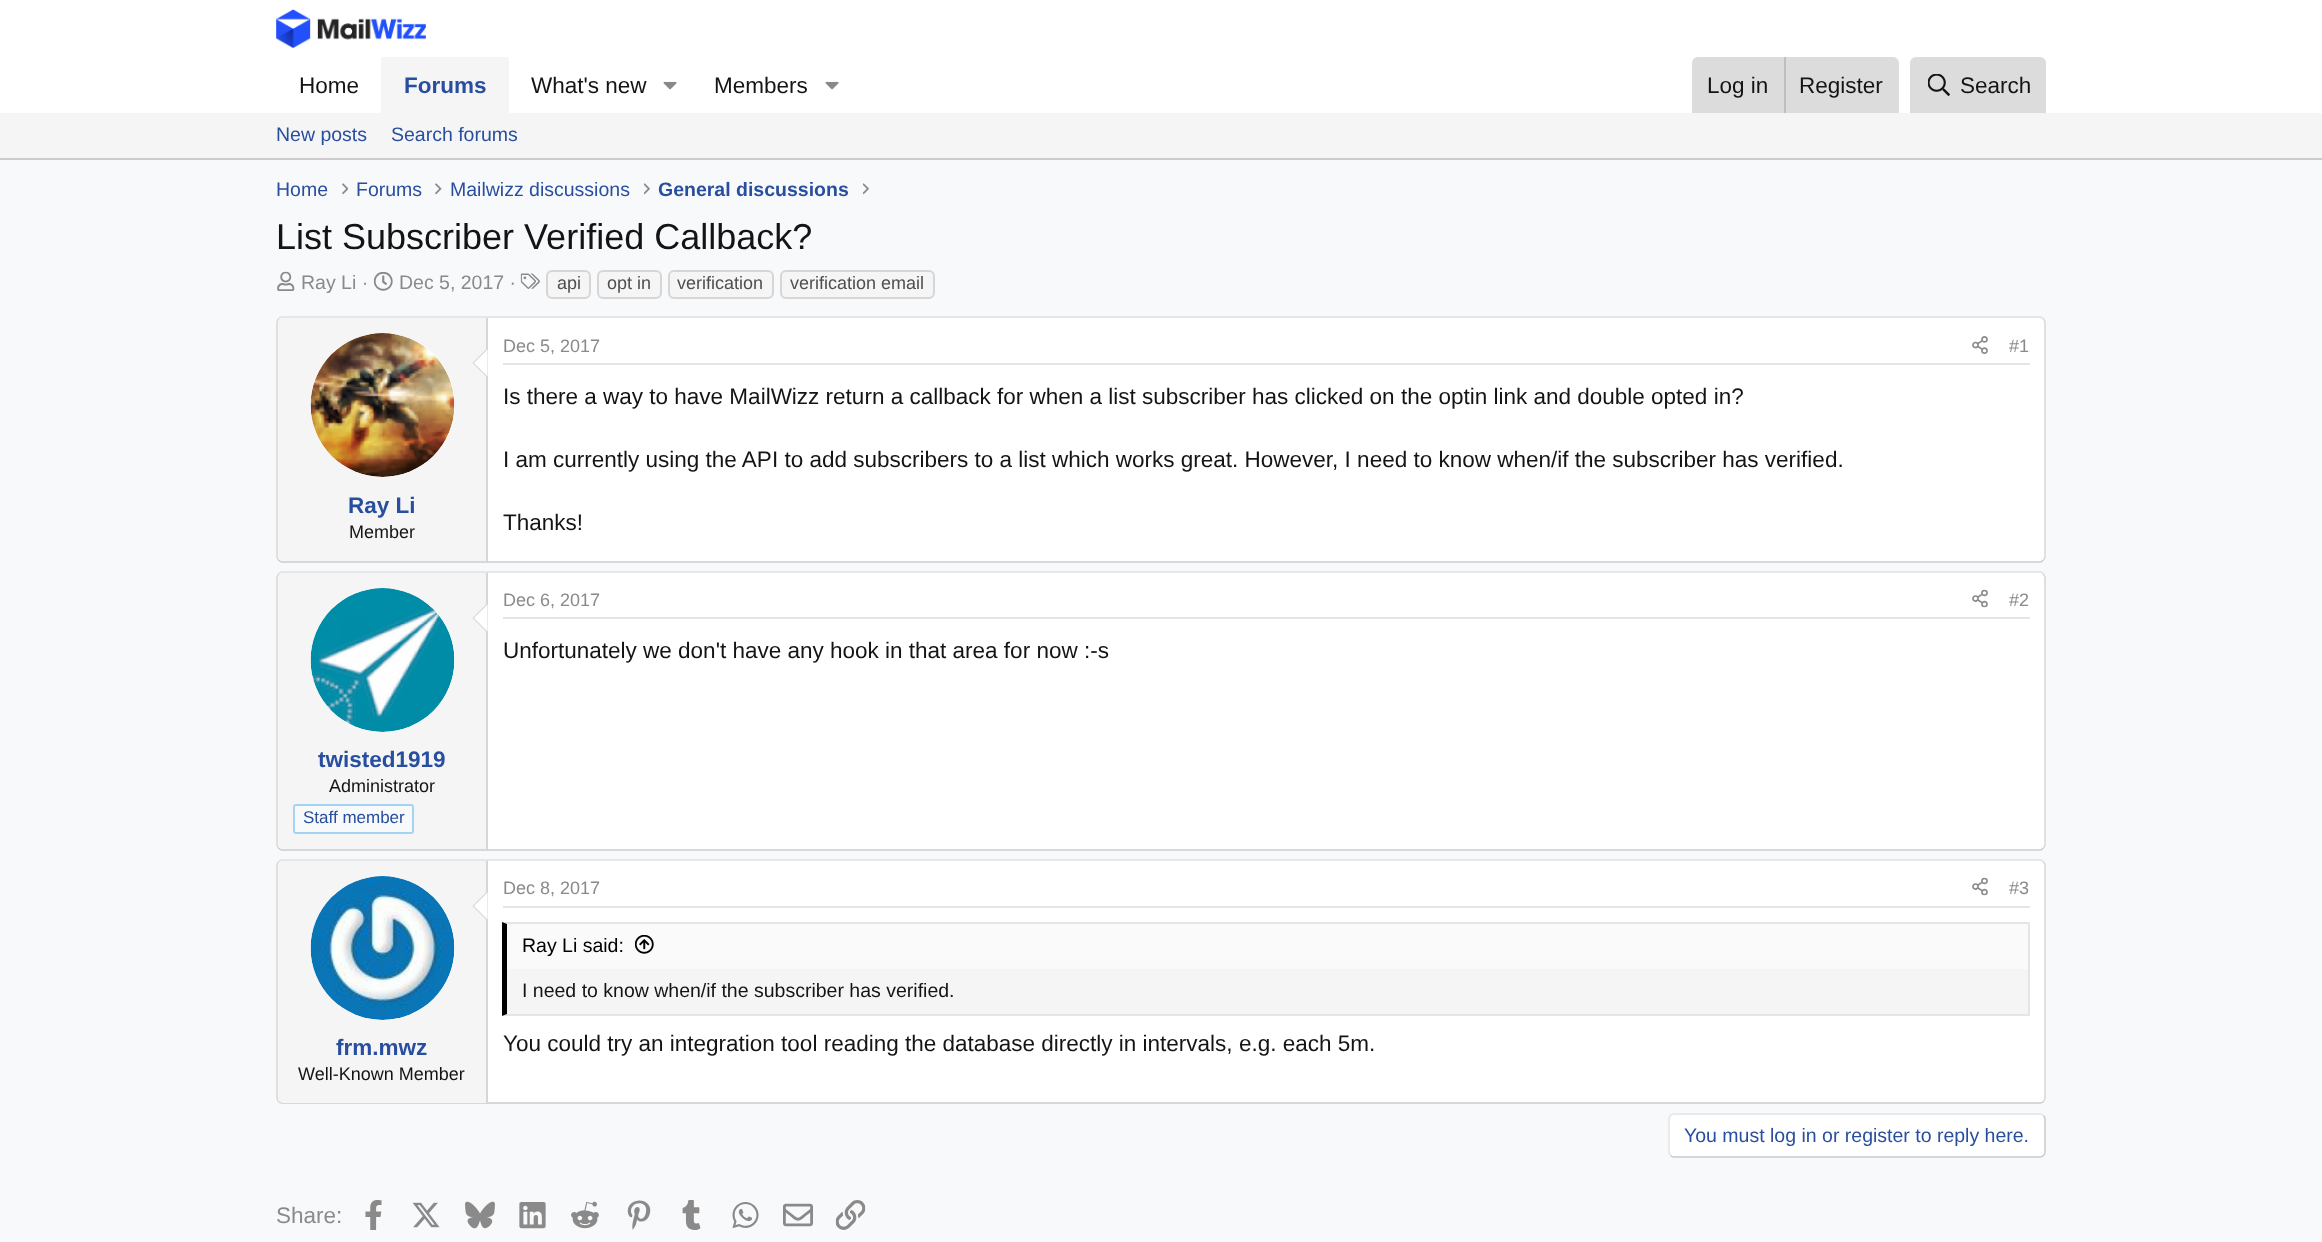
<!DOCTYPE html>
<meta charset="utf-8">
<style>body { margin: 0 } canvas { display: block }</style>
<canvas id="canvas" width="2322" height="1242"></canvas>
<script type="module">
  const canvas = document.getElementById("canvas");
  const ctx = canvas.getContext("2d");
  ctx.miterLimit = 4;
  ctx.fontKerning = "normal";
  async function loadImage(src) {
    const img = new Image();
    img.src = src;
    await img.decode();
    return img;
  }

  ctx.fillStyle = "#f8f9fa";
  ctx.fillRect(0, 0, 2322, 1242);
  ctx.fillStyle = "#ffffff";
  ctx.fillRect(0, 0, 2322, 113);
  ctx.drawImage(await loadImage("img1.png"), 276, 9, 150, 39);
  ctx.font = "22.5px Liberation Sans";
  ctx.fillStyle = "#141414";
  ctx.fillText("Home", 299, 93);
  ctx.fillStyle = "#f5f5f5";
  ctx.beginPath();
  ctx.roundRect(381, 57, 128, 56, [3, 3, 0, 0]);
  ctx.fill();
  ctx.font = "bold 22.5px Liberation Sans";
  ctx.fillStyle = "#284e9f";
  ctx.fillText("Forums", 404, 93);
  ctx.font = "22.5px Liberation Sans";
  ctx.fillStyle = "#141414";
  ctx.fillText("What's new", 531, 93);
  ctx.drawImage(await loadImage("img2.png"), 663, 81, 14, 9);
  ctx.fillText("Members", 714, 93);
  ctx.drawImage(await loadImage("img2.png"), 825, 81, 14, 9);
  ctx.fillStyle = "#dcdcdc";
  ctx.beginPath();
  ctx.roundRect(1692, 57, 207, 56, [6, 6, 0, 0]);
  ctx.fill();
  ctx.fillStyle = "#141414";
  ctx.fillText("Log in", 1707, 93);
  ctx.fillStyle = "#bebebe";
  ctx.fillRect(1784, 57, 2, 56);
  ctx.fillStyle = "#141414";
  ctx.fillText("Register", 1799, 93);
  ctx.fillStyle = "#dcdcdc";
  ctx.beginPath();
  ctx.roundRect(1910, 57, 136, 56, [6, 6, 0, 0]);
  ctx.fill();
  ctx.drawImage(await loadImage("img3.png"), 1928, 74, 22, 22);
  ctx.fillStyle = "#141414";
  ctx.fillText("Search", 1960, 93);
  ctx.fillStyle = "#f5f5f5";
  ctx.fillRect(0, 113, 2322, 45);
  ctx.fillStyle = "#cccccc";
  ctx.fillRect(0, 158, 2322, 2);
  ctx.font = "19.5px Liberation Sans";
  ctx.fillStyle = "#284e9f";
  ctx.fillText("New posts", 276, 141);
  ctx.fillText("Search forums", 391, 141);
  ctx.fillText("Home", 276, 196);
  ctx.drawImage(await loadImage("img4.png"), 342, 183, 6, 12);
  ctx.fillText("Forums", 356, 196);
  ctx.drawImage(await loadImage("img5.png"), 435, 183, 7, 12);
  ctx.fillText("Mailwizz discussions", 450, 196);
  ctx.drawImage(await loadImage("img6.png"), 644, 183, 6, 12);
  ctx.font = "bold 19.5px Liberation Sans";
  ctx.fillText("General discussions", 658, 196);
  ctx.drawImage(await loadImage("img6.png"), 863, 183, 6, 12);
  ctx.font = "36px Liberation Sans";
  ctx.fillStyle = "#141414";
  ctx.fillText("List Subscriber Verified Callback?", 276, 249);
  ctx.drawImage(await loadImage("img7.png"), 277, 271, 18, 20);
  ctx.font = "19.5px Liberation Sans";
  ctx.fillStyle = "#8a8a8a";
  ctx.fillText("Ray Li ·", 301, 289);
  ctx.drawImage(await loadImage("img8.png"), 373, 271, 20, 20);
  ctx.fillText("Dec 5, 2017 ·", 399, 289);
  ctx.drawImage(await loadImage("img9.png"), 520, 273, 20, 16);
  ctx.fillStyle = "#f5f5f5";
  ctx.beginPath();
  ctx.roundRect(547, 271, 43, 27, 5);
  ctx.fill();
  ctx.strokeStyle = "#d6d6d6";
  ctx.lineWidth = 2;
  ctx.stroke();
  ctx.font = "18px Liberation Sans";
  ctx.fillStyle = "#4f4f4f";
  ctx.fillText("api", 557, 289);
  ctx.fillStyle = "#f5f5f5";
  ctx.beginPath();
  ctx.roundRect(598, 271, 63, 27, 5);
  ctx.fill();
  ctx.stroke();
  ctx.fillStyle = "#4f4f4f";
  ctx.fillText("opt in", 607, 289);
  ctx.fillStyle = "#f5f5f5";
  ctx.beginPath();
  ctx.roundRect(669, 271, 104, 27, 5);
  ctx.fill();
  ctx.stroke();
  ctx.fillStyle = "#4f4f4f";
  ctx.fillText("verification", 677, 289);
  ctx.fillStyle = "#f5f5f5";
  ctx.beginPath();
  ctx.roundRect(781, 271, 153, 27, 5);
  ctx.fill();
  ctx.stroke();
  ctx.fillStyle = "#4f4f4f";
  ctx.fillText("verification email", 790, 289);
  ctx.fillStyle = "#ffffff";
  ctx.beginPath();
  ctx.roundRect(276, 317, 1770, 246, 6);
  ctx.fill();
  ctx.beginPath();
  ctx.moveTo(278.5, 319);
  ctx.bezierCurveTo(279.5, 318, 280.5, 317, 282, 317);
  ctx.lineTo(2040, 317);
  ctx.bezierCurveTo(2041.5, 317, 2042.5, 318, 2043.5, 319);
  ctx.strokeStyle = "#e0e0e0";
  ctx.lineWidth = 1.5;
  ctx.stroke();
  ctx.beginPath();
  ctx.moveTo(2043.5, 319);
  ctx.bezierCurveTo(2044.5, 320, 2045, 321, 2045, 322.5);
  ctx.lineTo(2045, 556.5);
  ctx.bezierCurveTo(2045, 558, 2044.5, 559, 2043.5, 560);
  ctx.strokeStyle = "#d6d6d6";
  ctx.stroke();
  ctx.beginPath();
  ctx.moveTo(2043.5, 560);
  ctx.bezierCurveTo(2042.5, 561, 2041.5, 562, 2040, 562);
  ctx.lineTo(282, 562);
  ctx.bezierCurveTo(280.5, 562, 279.5, 561, 278.5, 560);
  ctx.strokeStyle = "#cccccc";
  ctx.stroke();
  ctx.beginPath();
  ctx.moveTo(278.5, 560);
  ctx.bezierCurveTo(277.5, 559, 277, 558, 277, 556.5);
  ctx.lineTo(277, 322.5);
  ctx.bezierCurveTo(277, 321, 277.5, 320, 278.5, 319);
  ctx.strokeStyle = "#d6d6d6";
  ctx.stroke();
  ctx.fillStyle = "#f5f5f5";
  ctx.beginPath();
  ctx.roundRect(278, 318, 210, 243, [5, 0, 0, 5]);
  ctx.fill();
  ctx.fillStyle = "#d6d6d6";
  ctx.fillRect(486, 318, 2, 243);
  ctx.fillStyle = "#ffffff";
  ctx.beginPath();
  ctx.arc(383, 405, 72, 0, Math.PI * 2);
  ctx.fill();
  ctx.drawImage(await loadImage("img10.png"), 310, 333, 145, 144);
  ctx.fillStyle = "#d6d6d6";
  ctx.beginPath();
  ctx.moveTo(487.5, 348);
  ctx.lineTo(487.5, 378);
  ctx.lineTo(472.5, 363);
  ctx.closePath();
  ctx.fill();
  ctx.fillStyle = "#ffffff";
  ctx.beginPath();
  ctx.moveTo(487.5, 349.5);
  ctx.lineTo(487.5, 376.5);
  ctx.lineTo(474, 363);
  ctx.closePath();
  ctx.fill();
  ctx.font = "bold 22.5px Liberation Sans";
  ctx.fillStyle = "#284e9f";
  ctx.fillText("Ray Li", 348, 513);
  ctx.font = "18px Liberation Sans";
  ctx.fillStyle = "#141414";
  ctx.fillText("Member", 349, 538);
  ctx.fillStyle = "#e5e5e5";
  ctx.fillRect(503, 363, 1527, 2);
  ctx.fillStyle = "#8a8a8a";
  ctx.fillText("Dec 5, 2017", 503, 352);
  ctx.drawImage(await loadImage("img11.png"), 1972, 336, 16, 18);
  ctx.fillText("#1", 2009, 352);
  ctx.font = "22.5px Liberation Sans";
  ctx.fillStyle = "#141414";
  ctx.fillText("Is there a way to have MailWizz return a callback for when a list subscriber has clicked on the optin link and double opted in?", 503, 404);
  ctx.fillText("I am currently using the API to add subscribers to a list which works great. However, I need to know when/if the subscriber has verified.", 503, 467);
  ctx.fillText("Thanks!", 503, 530);
  ctx.fillStyle = "#ffffff";
  ctx.beginPath();
  ctx.roundRect(276, 572, 1770, 279, 6);
  ctx.fill();
  ctx.beginPath();
  ctx.moveTo(278.5, 574);
  ctx.bezierCurveTo(279.5, 573, 280.5, 572, 282, 572);
  ctx.lineTo(2040, 572);
  ctx.bezierCurveTo(2041.5, 572, 2042.5, 573, 2043.5, 574);
  ctx.strokeStyle = "#e0e0e0";
  ctx.stroke();
  ctx.beginPath();
  ctx.moveTo(2043.5, 574);
  ctx.lineTo(2045, 577);
  ctx.lineTo(2045, 844.5);
  ctx.bezierCurveTo(2045, 846, 2044.5, 847, 2043.5, 848);
  ctx.strokeStyle = "#d6d6d6";
  ctx.stroke();
  ctx.beginPath();
  ctx.moveTo(2043.5, 848);
  ctx.bezierCurveTo(2042.5, 849, 2041.5, 850, 2040, 850);
  ctx.lineTo(282, 850);
  ctx.bezierCurveTo(280.5, 850, 279.5, 849, 278.5, 848);
  ctx.strokeStyle = "#cccccc";
  ctx.stroke();
  ctx.beginPath();
  ctx.moveTo(278.5, 848);
  ctx.bezierCurveTo(277.5, 847, 277, 846, 277, 844.5);
  ctx.lineTo(277, 577);
  ctx.lineTo(278.5, 574);
  ctx.strokeStyle = "#d6d6d6";
  ctx.stroke();
  ctx.fillStyle = "#e5e5e5";
  ctx.fillRect(503, 617, 1527, 2);
  ctx.font = "18px Liberation Sans";
  ctx.fillStyle = "#8a8a8a";
  ctx.fillText("Dec 6, 2017", 503, 606);
  ctx.drawImage(await loadImage("img12.png"), 1972, 589, 16, 19);
  ctx.fillText("#2", 2009, 606);
  ctx.font = "22.5px Liberation Sans";
  ctx.fillStyle = "#141414";
  ctx.fillText("Unfortunately we don't have any hook in that area for now :-s", 503, 658);
  ctx.fillStyle = "#f5f5f5";
  ctx.beginPath();
  ctx.roundRect(278, 573, 210, 276, [5, 0, 0, 5]);
  ctx.fill();
  ctx.fillStyle = "#d6d6d6";
  ctx.fillRect(486, 573, 2, 276);
  ctx.fillStyle = "#ffffff";
  ctx.beginPath();
  ctx.arc(383, 660, 72, 0, Math.PI * 2);
  ctx.fill();
  ctx.drawImage(await loadImage("img13.png"), 310, 588, 145, 144);
  ctx.fillStyle = "#d6d6d6";
  ctx.beginPath();
  ctx.moveTo(487.5, 603);
  ctx.lineTo(487.5, 633);
  ctx.lineTo(472.5, 618);
  ctx.closePath();
  ctx.fill();
  ctx.fillStyle = "#ffffff";
  ctx.beginPath();
  ctx.moveTo(487.5, 604.5);
  ctx.lineTo(487.5, 631.5);
  ctx.lineTo(474, 618);
  ctx.closePath();
  ctx.fill();
  ctx.font = "bold 22.5px Liberation Sans";
  ctx.fillStyle = "#284e9f";
  ctx.fillText("twisted1919", 318, 767);
  ctx.font = "18px Liberation Sans";
  ctx.fillStyle = "#141414";
  ctx.fillText("Administrator", 329, 792);
  ctx.fillStyle = "#f8f9fa";
  ctx.beginPath();
  ctx.roundRect(294, 805, 119, 28, 2);
  ctx.fill();
  ctx.strokeStyle = "#a3d4f5";
  ctx.lineWidth = 2;
  ctx.stroke();
  ctx.font = "17px Liberation Sans";
  ctx.fillStyle = "#284e9f";
  ctx.fillText("Staff member", 303, 823);
  ctx.fillStyle = "#ffffff";
  ctx.beginPath();
  ctx.roundRect(276, 860, 1770, 244, 6);
  ctx.fill();
  ctx.beginPath();
  ctx.moveTo(278.5, 862);
  ctx.bezierCurveTo(279.5, 861, 280.5, 860, 282, 860);
  ctx.lineTo(2040, 860);
  ctx.bezierCurveTo(2041.5, 860, 2042.5, 861, 2043.5, 862);
  ctx.strokeStyle = "#e0e0e0";
  ctx.lineWidth = 1.5;
  ctx.stroke();
  ctx.beginPath();
  ctx.moveTo(2043.5, 862);
  ctx.bezierCurveTo(2044.5, 863, 2045, 864, 2045, 865.5);
  ctx.lineTo(2045, 1098);
  ctx.bezierCurveTo(2045, 1099.5, 2044.5, 1100.5, 2043.5, 1101.5);
  ctx.strokeStyle = "#d6d6d6";
  ctx.stroke();
  ctx.beginPath();
  ctx.moveTo(2043.5, 1101.5);
  ctx.bezierCurveTo(2042.5, 1102.5, 2041.5, 1103, 2040, 1103);
  ctx.lineTo(282, 1103);
  ctx.bezierCurveTo(280.5, 1103, 279.5, 1102.5, 278.5, 1101.5);
  ctx.strokeStyle = "#cccccc";
  ctx.stroke();
  ctx.beginPath();
  ctx.moveTo(278.5, 1101.5);
  ctx.bezierCurveTo(277.5, 1100.5, 277, 1099.5, 277, 1098);
  ctx.lineTo(277, 865.5);
  ctx.bezierCurveTo(277, 864, 277.5, 863, 278.5, 862);
  ctx.strokeStyle = "#d6d6d6";
  ctx.stroke();
  ctx.fillStyle = "#f5f5f5";
  ctx.beginPath();
  ctx.roundRect(278, 861, 210, 242, [5, 0, 0, 5]);
  ctx.fill();
  ctx.fillStyle = "#d6d6d6";
  ctx.fillRect(486, 861, 2, 242);
  ctx.fillStyle = "#ffffff";
  ctx.beginPath();
  ctx.arc(383, 948, 72, 0, Math.PI * 2);
  ctx.fill();
  ctx.drawImage(await loadImage("img14.png"), 310, 876, 145, 144);
  ctx.fillStyle = "#d6d6d6";
  ctx.beginPath();
  ctx.moveTo(487.5, 891);
  ctx.lineTo(487.5, 921);
  ctx.lineTo(472.5, 906);
  ctx.closePath();
  ctx.fill();
  ctx.fillStyle = "#ffffff";
  ctx.beginPath();
  ctx.moveTo(487.5, 892.5);
  ctx.lineTo(487.5, 919.5);
  ctx.lineTo(474, 906);
  ctx.closePath();
  ctx.fill();
  ctx.font = "bold 22.5px Liberation Sans";
  ctx.fillStyle = "#284e9f";
  ctx.fillText("frm.mwz", 336, 1055);
  ctx.font = "18px Liberation Sans";
  ctx.fillStyle = "#141414";
  ctx.fillText("Well-Known Member", 298, 1080);
  ctx.fillStyle = "#e5e5e5";
  ctx.fillRect(503, 906, 1527, 2);
  ctx.fillStyle = "#8a8a8a";
  ctx.fillText("Dec 8, 2017", 503, 894);
  ctx.drawImage(await loadImage("img12.png"), 1972, 877, 16, 19);
  ctx.fillText("#3", 2009, 894);
  ctx.fillStyle = "#f5f5f5";
  ctx.fillRect(507, 969, 1521, 45);
  ctx.fillStyle = "#e5e5e5";
  ctx.beginPath();
  ctx.moveTo(502, 922);
  ctx.lineTo(2030, 922);
  ctx.lineTo(2028, 924);
  ctx.lineTo(507, 924);
  ctx.closePath();
  ctx.fill();
  ctx.fillRect(2028, 923, 2, 93);
  ctx.beginPath();
  ctx.moveTo(2030, 1016);
  ctx.lineTo(502, 1016);
  ctx.lineTo(507, 1014);
  ctx.lineTo(2028, 1014);
  ctx.closePath();
  ctx.fill();
  ctx.fillStyle = "#000000";
  ctx.beginPath();
  ctx.moveTo(502, 1016);
  ctx.lineTo(502, 922);
  ctx.lineTo(507, 924);
  ctx.lineTo(507, 1014);
  ctx.closePath();
  ctx.fill();
  ctx.fillStyle = "#fafafa";
  ctx.fillRect(507, 924, 1521, 45);
  ctx.font = "19.5px Liberation Sans";
  ctx.fillStyle = "#000000";
  ctx.fillText("Ray Li said:", 522, 952);
  ctx.drawImage(await loadImage("img15.png"), 635, 935, 19, 19);
  ctx.fillStyle = "#141414";
  ctx.fillText("I need to know when/if the subscriber has verified.", 522, 997);
  ctx.font = "22.5px Liberation Sans";
  ctx.fillText("You could try an integration tool reading the database directly in intervals, e.g. each 5m.", 503, 1051);
  ctx.fillStyle = "#ffffff";
  ctx.beginPath();
  ctx.roundRect(1668, 1113, 378, 45, 6);
  ctx.fill();
  ctx.beginPath();
  ctx.moveTo(2043.5, 1115.5);
  ctx.bezierCurveTo(2044.5, 1116.5, 2045, 1117.5, 2045, 1119);
  ctx.lineTo(2045, 1152);
  ctx.bezierCurveTo(2045, 1153.5, 2044.5, 1154.5, 2043.5, 1155.5);
  ctx.bezierCurveTo(2042.5, 1156.5, 2041.5, 1157, 2040, 1157);
  ctx.lineTo(1674, 1157);
  ctx.bezierCurveTo(1672.5, 1157, 1671.5, 1156.5, 1670.5, 1155.5);
  ctx.strokeStyle = "#c9c9c9";
  ctx.stroke();
  ctx.beginPath();
  ctx.moveTo(1670.5, 1155.5);
  ctx.bezierCurveTo(1669.5, 1154.5, 1669, 1153.5, 1669, 1152);
  ctx.lineTo(1669, 1119);
  ctx.bezierCurveTo(1669, 1117.5, 1669.5, 1116.5, 1670.5, 1115.5);
  ctx.bezierCurveTo(1671.5, 1114.5, 1672.5, 1114, 1674, 1114);
  ctx.lineTo(2040, 1114);
  ctx.bezierCurveTo(2041.5, 1114, 2042.5, 1114.5, 2043.5, 1115.5);
  ctx.strokeStyle = "#e3e3e3";
  ctx.stroke();
  ctx.font = "19.5px Liberation Sans";
  ctx.fillStyle = "#284e9f";
  ctx.fillText("You must log in or register to reply here.", 1684, 1142);
  ctx.font = "22.5px Liberation Sans";
  ctx.fillStyle = "#8a8a8a";
  ctx.fillText("Share:", 276, 1223);
  ctx.drawImage(await loadImage("img16.png"), 365, 1200, 17, 30);
  ctx.drawImage(await loadImage("img17.png"), 412, 1202, 28, 26);
  ctx.drawImage(await loadImage("img18.png"), 465, 1201, 30, 28);
  ctx.drawImage(await loadImage("img19.png"), 519, 1202, 27, 27);
  ctx.drawImage(await loadImage("img20.png"), 571, 1201, 28, 28);
  ctx.drawImage(await loadImage("img21.png"), 627, 1200, 24, 30);
  ctx.drawImage(await loadImage("img22.png"), 682, 1200, 19, 30);
  ctx.drawImage(await loadImage("img23.png"), 732, 1202, 27, 27);
  ctx.drawImage(await loadImage("img24.png"), 783, 1203, 30, 24);
  ctx.drawImage(await loadImage("img25.png"), 835, 1200, 31, 30);
</script>
